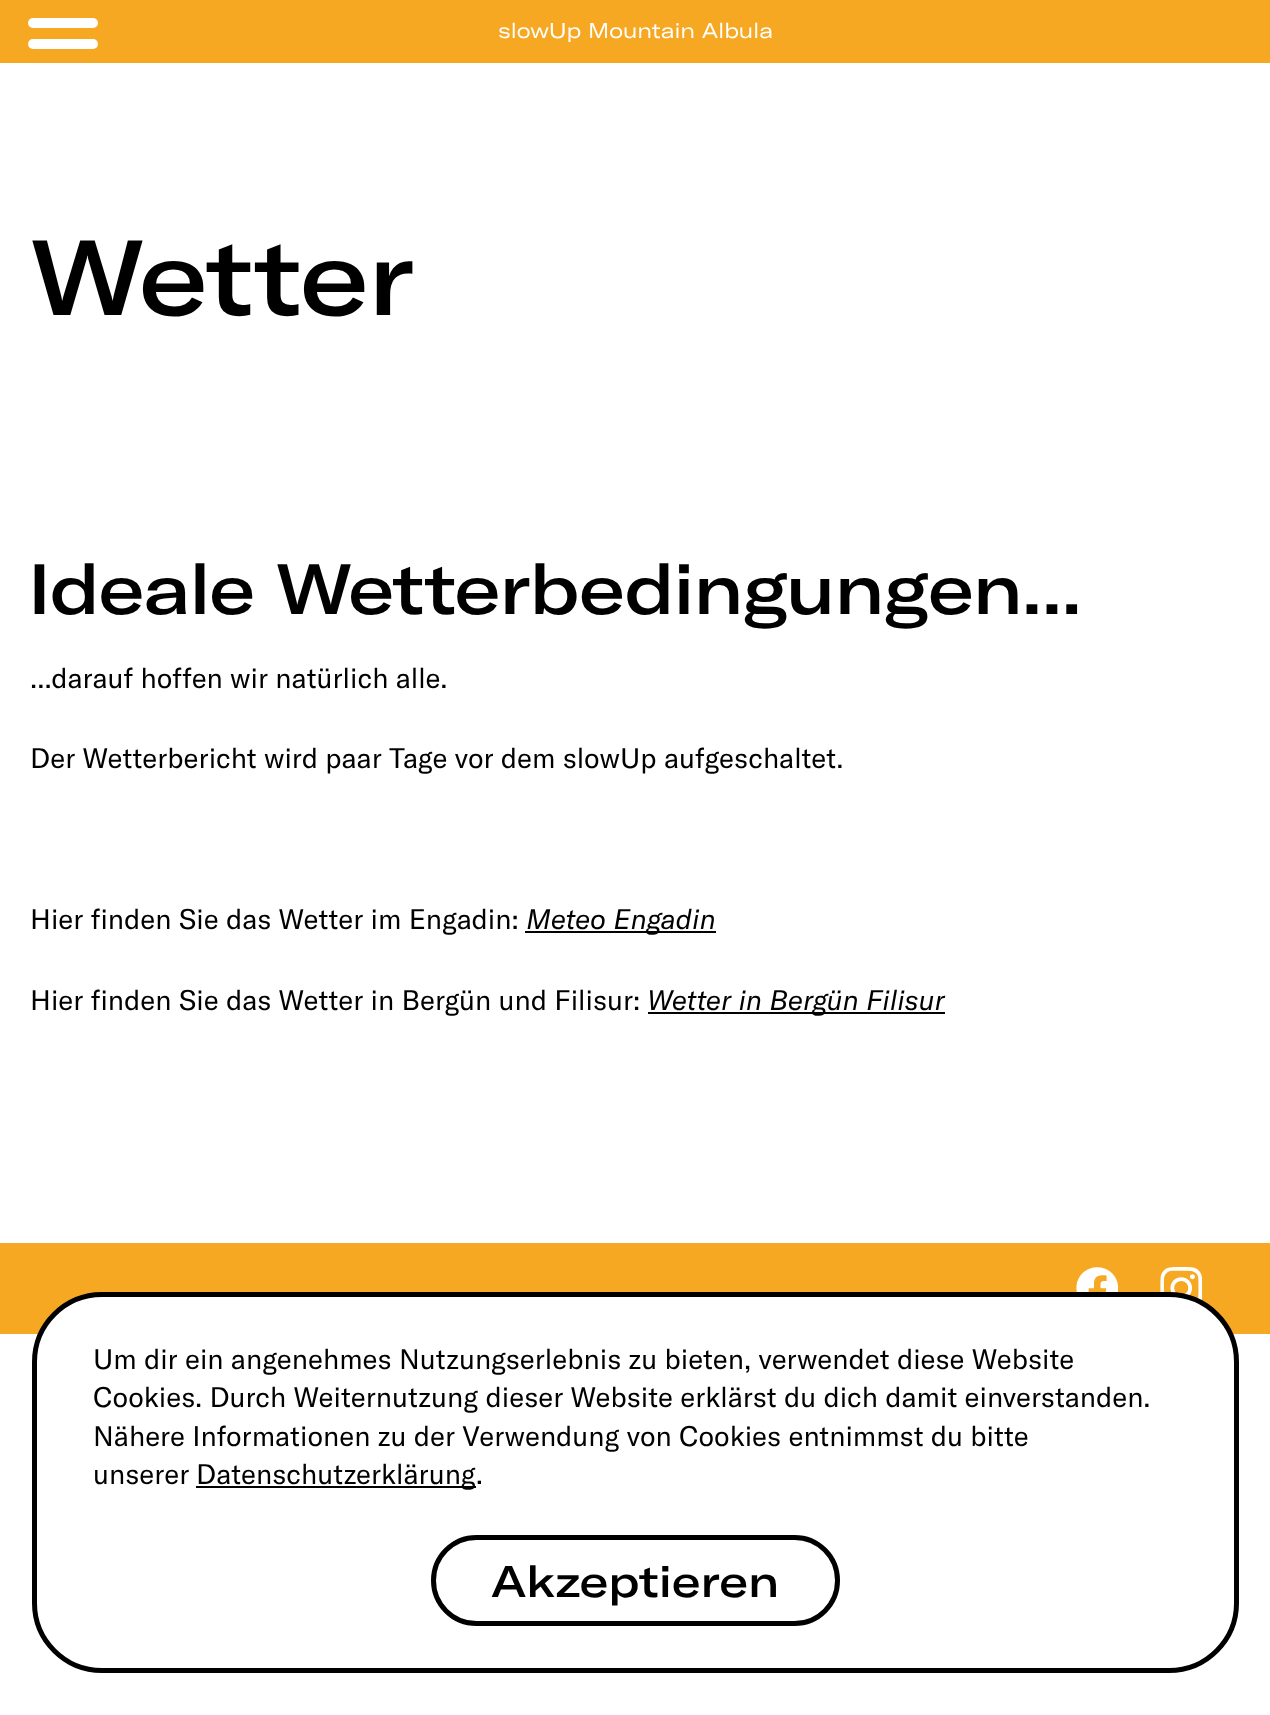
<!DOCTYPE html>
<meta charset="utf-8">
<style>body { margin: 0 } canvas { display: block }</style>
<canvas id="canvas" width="1270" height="1715"></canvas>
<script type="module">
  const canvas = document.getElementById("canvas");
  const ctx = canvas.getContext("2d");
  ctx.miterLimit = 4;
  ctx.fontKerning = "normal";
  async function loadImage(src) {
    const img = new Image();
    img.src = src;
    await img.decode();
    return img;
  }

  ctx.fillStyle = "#ffffff";
  ctx.fillRect(0, 0, 1270, 1715);
  ctx.fillStyle = "#f7a823";
  ctx.fillRect(0, 0, 1270, 63);
  ctx.fillStyle = "#ffffff";
  ctx.beginPath();
  ctx.roundRect(28, 18, 70, 10, 5);
  ctx.fill();
  ctx.beginPath();
  ctx.roundRect(28, 39, 70, 10, 5);
  ctx.fill();
  ctx.font = "21px 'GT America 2'";
  ctx.fillText("slowUp Mountain Albula", 498, 38);
  ctx.letterSpacing = "-0.9px";
  ctx.font = "500 105px GT America";
  ctx.fillStyle = "#000000";
  ctx.fillText("Wetter", 30, 315);
  ctx.font = "500 70px GT America";
  ctx.fillText("Ideale Wetterbedingungen...", 28, 614);
  ctx.letterSpacing = "0px";
  ctx.font = "28px GT America";
  ctx.fillText("...darauf hoffen wir natürlich alle.", 30, 688);
  ctx.fillText("Der Wetterbericht wird paar Tage vor dem slowUp aufgeschaltet.", 30, 768);
  ctx.fillText("Hier finden Sie das Wetter im Engadin:", 30, 929);
  ctx.fillRect(525, 931, 191, 2);
  ctx.font = "italic 28px GT America";
  ctx.fillText("Meteo Engadin", 526, 929);
  ctx.font = "28px GT America";
  ctx.fillText("Hier finden Sie das Wetter in Bergün und Filisur:", 30, 1010);
  ctx.fillRect(648, 1012, 297, 2);
  ctx.font = "italic 28px GT America";
  ctx.fillText("Wetter in Bergün Filisur", 647, 1010);
  ctx.fillStyle = "#f7a823";
  ctx.fillRect(0, 1243, 1270, 91);
  ctx.drawImage(await loadImage("img1.png"), 1076, 1267, 43, 25);
  ctx.drawImage(await loadImage("img2.png"), 1160, 1267, 43, 34);
  ctx.fillStyle = "#ffffff";
  ctx.beginPath();
  ctx.roundRect(34.5, 1294.5, 1202, 376, 67.5);
  ctx.fill();
  ctx.strokeStyle = "#000000";
  ctx.lineWidth = 5;
  ctx.stroke();
  ctx.font = "28px GT America";
  ctx.fillStyle = "#000000";
  ctx.fillText("Um dir ein angenehmes Nutzungserlebnis zu bieten, verwendet diese Website", 93, 1369);
  ctx.fillText("Cookies. Durch Weiternutzung dieser Website erklärst du dich damit einverstanden.", 93, 1407);
  ctx.fillText("Nähere Informationen zu der Verwendung von Cookies entnimmst du bitte", 93, 1446);
  ctx.fillText("unserer", 93, 1484);
  ctx.fillRect(196, 1486, 280, 2);
  ctx.fillText("Datenschutzerklärung.", 196, 1484);
  ctx.beginPath();
  ctx.roundRect(433.5, 1537.5, 404, 86, 43);
  ctx.stroke();
  ctx.font = "500 43.75px GT America";
  ctx.fillText("Akzeptieren", 491, 1597);
</script>
